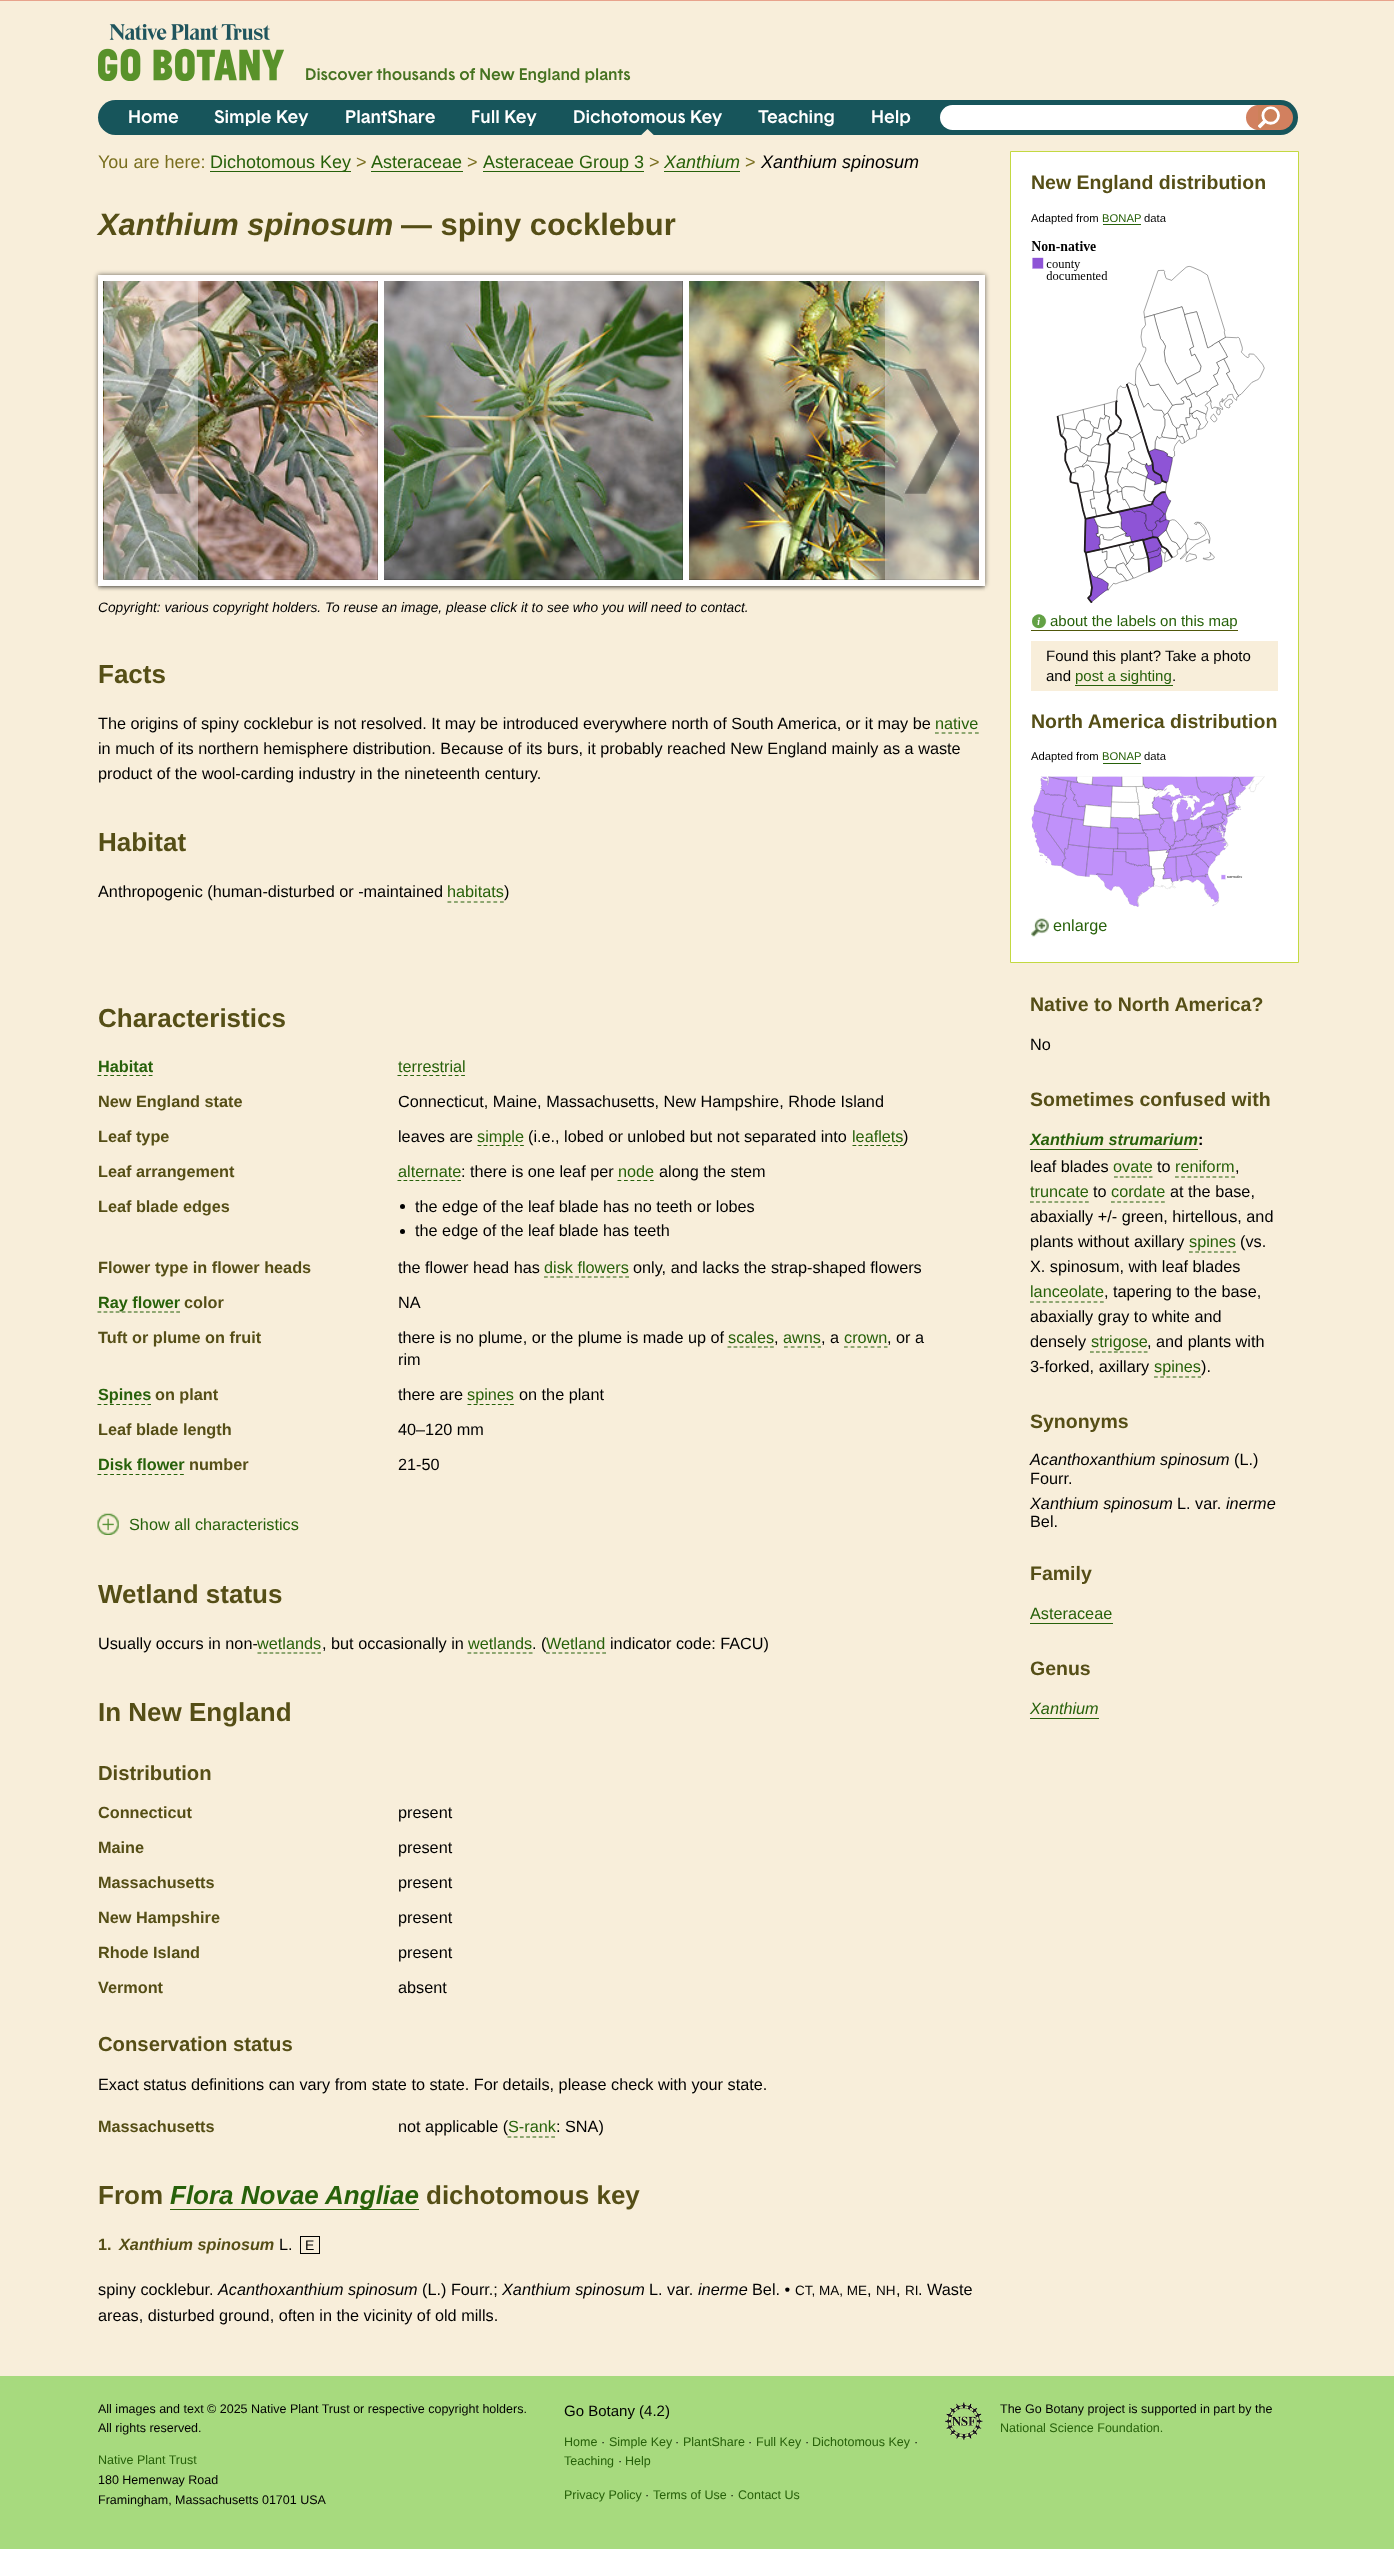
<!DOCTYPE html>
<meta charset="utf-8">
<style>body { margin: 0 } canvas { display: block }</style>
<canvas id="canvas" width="1394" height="2549"></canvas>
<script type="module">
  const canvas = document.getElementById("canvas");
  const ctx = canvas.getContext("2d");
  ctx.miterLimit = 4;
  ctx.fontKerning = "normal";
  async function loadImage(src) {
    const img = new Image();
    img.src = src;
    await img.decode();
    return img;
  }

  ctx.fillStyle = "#f8eeda";
  ctx.fillRect(0, 0, 1394, 2549);
  ctx.fillStyle = "#e8a38c";
  ctx.fillRect(0, 0, 1394, 1);
  ctx.drawImage(await loadImage("img1.png"), 98, 24, 186, 57);
  ctx.font = "500 16.25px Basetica";
  ctx.fillStyle = "#467321";
  ctx.fillText("Discover thousands of New England plants", 305, 80);
  ctx.fillStyle = "#17555b";
  ctx.beginPath();
  ctx.roundRect(98, 100, 1200, 35, 17.5);
  ctx.fill();
  ctx.font = "500 17.9px Basetica";
  ctx.fillStyle = "#ffffff";
  ctx.fillText("Home", 128, 123);
  ctx.fillText("Simple Key", 214, 123);
  ctx.fillText("PlantShare", 345, 123);
  ctx.fillText("Full Key", 471, 123);
  ctx.fillText("Dichotomous Key", 573, 123);
  ctx.fillStyle = "#f8eeda";
  ctx.beginPath();
  ctx.moveTo(660, 141);
  ctx.lineTo(635, 141);
  ctx.lineTo(647.5, 129);
  ctx.closePath();
  ctx.fill();
  ctx.fillStyle = "#ffffff";
  ctx.fillText("Teaching", 758, 123);
  ctx.fillText("Help", 871, 123);
  ctx.beginPath();
  ctx.roundRect(940, 105, 326, 25, 12.5);
  ctx.fill();
  ctx.fillStyle = "#d2805f";
  ctx.beginPath();
  ctx.roundRect(1246, 105, 47, 25, 12.5);
  ctx.fill();
  ctx.drawImage(await loadImage("img2.png"), 1258, 106, 22, 23);
  ctx.font = "18px Liberation Sans";
  ctx.fillStyle = "#7a6f1f";
  ctx.fillText("You are here:", 98, 168);
  ctx.fillStyle = "#27610a";
  ctx.fillRect(210, 171, 141, 1);
  ctx.fillText("Dichotomous Key", 210, 168);
  ctx.fillStyle = "#7a6f1f";
  ctx.fillText(">", 356, 168);
  ctx.fillStyle = "#27610a";
  ctx.fillText("Asteraceae", 371, 168);
  ctx.fillRect(371, 171, 92, 1);
  ctx.fillStyle = "#7a6f1f";
  ctx.fillText(">", 467, 168);
  ctx.fillStyle = "#27610a";
  ctx.fillRect(483, 171, 161, 1);
  ctx.fillText("Asteraceae Group 3", 483, 168);
  ctx.fillStyle = "#7a6f1f";
  ctx.fillText(">", 649, 168);
  ctx.font = "italic 18px Liberation Sans";
  ctx.fillStyle = "#27610a";
  ctx.fillText("Xanthium", 664, 168);
  ctx.fillRect(664, 171, 76, 1);
  ctx.font = "18px Liberation Sans";
  ctx.fillStyle = "#7a6f1f";
  ctx.fillText(">", 745, 168);
  ctx.font = "italic 18px Liberation Sans";
  ctx.fillStyle = "#000000";
  ctx.fillText("Xanthium spinosum", 761, 168);
  ctx.font = "italic bold 30.9px Liberation Sans";
  ctx.fillStyle = "#554e16";
  ctx.fillText("Xanthium spinosum", 98, 235);
  ctx.font = "bold 30.9px Liberation Sans";
  ctx.fillText("— spiny cocklebur", 401, 235);
  ctx.fillStyle = "rgba(0, 0, 0, 0.6)";
  ctx.filter = "blur(2.5px)";
  ctx.beginPath();
  ctx.rect(98, 275, 887, 311);
  ctx.fill();
  ctx.filter = "none";
  ctx.save();
  ctx.beginPath();
  ctx.rect(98, 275, 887, 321);
  ctx.clip();
  ctx.filter = "blur(2.5px)";
  ctx.beginPath();
  ctx.rect(98, 275, 887, 311);
  ctx.fill();
  ctx.filter = "none";
  ctx.restore();
  ctx.strokeStyle = "#fffefe";
  ctx.lineWidth = 6;
  ctx.strokeRect(101, 278, 881, 305);
  ctx.fillStyle = "#ffffff";
  ctx.fillRect(378, 281, 6, 299);
  ctx.drawImage(await loadImage("img3.png"), 103, 281, 275, 299);
  ctx.fillRect(683, 281, 6, 299);
  ctx.drawImage(await loadImage("img4.png"), 384, 281, 299, 299);
  ctx.drawImage(await loadImage("img5.png"), 689, 281, 290, 299);
  ctx.fillStyle = "rgba(255, 255, 255, 0.35)";
  ctx.fillRect(104, 281, 94, 299);
  ctx.drawImage(await loadImage("img6.png"), 122, 368, 57, 126);
  ctx.fillRect(885, 281, 94, 299);
  ctx.drawImage(await loadImage("img7.png"), 903, 368, 57, 126);
  ctx.font = "italic 13.75px Liberation Sans";
  ctx.fillStyle = "#000000";
  ctx.fillText("Copyright: various copyright holders. To reuse an image, please click it to see who you will need to contact.", 98, 612);
  ctx.font = "bold 26px Liberation Sans";
  ctx.fillStyle = "#554e16";
  ctx.fillText("Facts", 98, 683);
  ctx.font = "16.25px Liberation Sans";
  ctx.fillStyle = "#000000";
  ctx.fillText("The origins of spiny cocklebur is not resolved. It may be introduced everywhere north of South America, or it may be", 98, 729);
  ctx.fillStyle = "#27610a";
  ctx.fillText("native", 935, 729);
  ctx.beginPath();
  ctx.moveTo(935, 733);
  ctx.lineTo(979, 733);
  ctx.strokeStyle = "#27610a";
  ctx.lineWidth = 1.2;
  ctx.setLineDash([3.75, 2.91]);
  ctx.stroke();
  ctx.fillStyle = "#000000";
  ctx.fillText("in much of its northern hemisphere distribution. Because of its burs, it probably reached New England mainly as a waste", 98, 754);
  ctx.fillText("product of the wool-carding industry in the nineteenth century.", 98, 779);
  ctx.font = "bold 26px Liberation Sans";
  ctx.fillStyle = "#554e16";
  ctx.fillText("Habitat", 98, 851);
  ctx.font = "16.25px Liberation Sans";
  ctx.fillStyle = "#000000";
  ctx.fillText("Anthropogenic (human-disturbed or -maintained", 98, 897);
  ctx.fillStyle = "#27610a";
  ctx.fillText("habitats", 447, 897);
  ctx.beginPath();
  ctx.moveTo(447.5, 902);
  ctx.lineTo(504, 902);
  ctx.setLineDash([3.75, 2.81]);
  ctx.stroke();
  ctx.fillStyle = "#000000";
  ctx.fillText(")", 504, 897);
  ctx.fillStyle = "#ffffff";
  ctx.beginPath();
  ctx.rect(1010.5, 151.5, 288, 811);
  ctx.fill();
  ctx.strokeStyle = "#c3d941";
  ctx.lineWidth = 1;
  ctx.setLineDash([]);
  ctx.stroke();
  ctx.font = "bold 19.5px Liberation Sans";
  ctx.fillStyle = "#554e16";
  ctx.fillText("New England distribution", 1031, 189);
  ctx.font = "11.25px Liberation Sans";
  ctx.fillStyle = "#000000";
  ctx.fillText("Adapted from", 1031, 222);
  ctx.fillStyle = "#27610a";
  ctx.fillText("BONAP", 1102, 222);
  ctx.fillRect(1103, 224, 38, 1);
  ctx.fillStyle = "#000000";
  ctx.fillText("data", 1144, 222);
  ctx.drawImage(await loadImage("img8.png"), 1031, 241, 234, 362);
  ctx.drawImage(await loadImage("img9.png"), 1032, 614, 15, 15);
  ctx.fillStyle = "#50570a";
  ctx.fillRect(1031, 630, 207, 1);
  ctx.font = "15px Liberation Sans";
  ctx.fillStyle = "#27610a";
  ctx.fillText("about the labels on this map", 1050, 626);
  ctx.fillStyle = "#f8eeda";
  ctx.fillRect(1031, 641, 247, 50);
  ctx.fillStyle = "#000000";
  ctx.fillText("Found this plant? Take a photo", 1046, 661);
  ctx.fillText("and", 1046, 681);
  ctx.fillStyle = "#27610a";
  ctx.fillText("post a sighting", 1075, 681);
  ctx.fillRect(1075, 685, 98, 1);
  ctx.fillStyle = "#000000";
  ctx.fillText(".", 1172, 681);
  ctx.font = "bold 19.5px Liberation Sans";
  ctx.fillStyle = "#554e16";
  ctx.fillText("North America distribution", 1031, 728);
  ctx.font = "11.25px Liberation Sans";
  ctx.fillStyle = "#000000";
  ctx.fillText("Adapted from", 1031, 760);
  ctx.fillStyle = "#27610a";
  ctx.fillText("BONAP", 1102, 760);
  ctx.fillRect(1103, 763, 38, 1);
  ctx.fillStyle = "#000000";
  ctx.fillText("data", 1144, 760);
  ctx.drawImage(await loadImage("img10.png"), 1031, 776, 234, 131);
  ctx.drawImage(await loadImage("img11.png"), 1031, 918, 18, 19);
  ctx.font = "16.25px Liberation Sans";
  ctx.fillStyle = "#27610a";
  ctx.fillText("enlarge", 1053, 931);
  ctx.font = "bold 26px Liberation Sans";
  ctx.fillStyle = "#554e16";
  ctx.fillText("Characteristics", 98, 1027);
  ctx.font = "bold 16.25px Liberation Sans";
  ctx.fillStyle = "#27610a";
  ctx.fillText("Habitat", 98, 1072);
  ctx.beginPath();
  ctx.moveTo(97.5, 1075.5);
  ctx.lineTo(152.5, 1075.5);
  ctx.strokeStyle = "#27610a";
  ctx.lineWidth = 1.2;
  ctx.setLineDash([3.75, 2.65]);
  ctx.stroke();
  ctx.font = "16.25px Liberation Sans";
  ctx.fillText("terrestrial", 398, 1072);
  ctx.beginPath();
  ctx.moveTo(397.5, 1075.5);
  ctx.lineTo(465, 1075.5);
  ctx.setLineDash([3.75, 2.62]);
  ctx.stroke();
  ctx.font = "bold 16.25px Liberation Sans";
  ctx.fillStyle = "#554e16";
  ctx.fillText("New England state", 98, 1107);
  ctx.font = "16.25px Liberation Sans";
  ctx.fillStyle = "#000000";
  ctx.fillText("Connecticut, Maine, Massachusetts, New Hampshire, Rhode Island", 398, 1107);
  ctx.font = "bold 16.25px Liberation Sans";
  ctx.fillStyle = "#554e16";
  ctx.fillText("Leaf type", 98, 1142);
  ctx.font = "16.25px Liberation Sans";
  ctx.fillStyle = "#000000";
  ctx.fillText("leaves are", 398, 1142);
  ctx.beginPath();
  ctx.moveTo(477.5, 1145.5);
  ctx.lineTo(524, 1145.5);
  ctx.setLineDash([3.75, 2.33]);
  ctx.stroke();
  ctx.fillStyle = "#27610a";
  ctx.fillText("simple", 477, 1142);
  ctx.fillStyle = "#000000";
  ctx.fillText("(i.e., lobed or unlobed but not separated into", 528, 1142);
  ctx.fillStyle = "#27610a";
  ctx.fillText("leaflets", 852, 1142);
  ctx.beginPath();
  ctx.moveTo(852.5, 1145.5);
  ctx.lineTo(904, 1145.5);
  ctx.setLineDash([3.75, 2.19]);
  ctx.stroke();
  ctx.fillStyle = "#000000";
  ctx.fillText(")", 903, 1142);
  ctx.font = "bold 16.25px Liberation Sans";
  ctx.fillStyle = "#554e16";
  ctx.fillText("Leaf arrangement", 98, 1177);
  ctx.font = "16.25px Liberation Sans";
  ctx.fillStyle = "#27610a";
  ctx.fillText("alternate", 398, 1177);
  ctx.beginPath();
  ctx.moveTo(397.5, 1180.5);
  ctx.lineTo(461, 1180.5);
  ctx.setLineDash([3.75, 2.25]);
  ctx.stroke();
  ctx.fillStyle = "#000000";
  ctx.fillText(": there is one leaf per", 461, 1177);
  ctx.fillStyle = "#27610a";
  ctx.fillText("node", 618, 1177);
  ctx.beginPath();
  ctx.moveTo(617.5, 1180.5);
  ctx.lineTo(654, 1180.5);
  ctx.setLineDash([3.75, 2.75]);
  ctx.stroke();
  ctx.fillStyle = "#000000";
  ctx.fillText("along the stem", 659, 1177);
  ctx.font = "bold 16.25px Liberation Sans";
  ctx.fillStyle = "#554e16";
  ctx.fillText("Leaf blade edges", 98, 1212);
  ctx.fillStyle = "#000000";
  ctx.beginPath();
  ctx.arc(402.5, 1206.5, 2.5, 0, Math.PI * 2);
  ctx.fill();
  ctx.font = "16.25px Liberation Sans";
  ctx.fillText("the edge of the leaf blade has no teeth or lobes", 415, 1212);
  ctx.beginPath();
  ctx.arc(402.5, 1231.5, 2.5, 0, Math.PI * 2);
  ctx.fill();
  ctx.fillText("the edge of the leaf blade has teeth", 415, 1236);
  ctx.font = "bold 16.25px Liberation Sans";
  ctx.fillStyle = "#554e16";
  ctx.fillText("Flower type in flower heads", 98, 1273);
  ctx.font = "16.25px Liberation Sans";
  ctx.fillStyle = "#000000";
  ctx.fillText("the flower head has", 398, 1273);
  ctx.fillStyle = "#27610a";
  ctx.fillText("disk flowers", 544, 1273);
  ctx.beginPath();
  ctx.moveTo(544, 1277);
  ctx.lineTo(629, 1277);
  ctx.setLineDash([3.75, 2.5]);
  ctx.stroke();
  ctx.fillStyle = "#000000";
  ctx.fillText("only, and lacks the strap-shaped flowers", 633, 1273);
  ctx.beginPath();
  ctx.moveTo(97.5, 1312);
  ctx.lineTo(180, 1312);
  ctx.setLineDash([3.75, 2.31]);
  ctx.stroke();
  ctx.font = "bold 16.25px Liberation Sans";
  ctx.fillStyle = "#27610a";
  ctx.fillText("Ray flower", 98, 1308);
  ctx.fillStyle = "#554e16";
  ctx.fillText("color", 184, 1308);
  ctx.font = "16.25px Liberation Sans";
  ctx.fillStyle = "#000000";
  ctx.fillText("NA", 398, 1308);
  ctx.font = "bold 16.25px Liberation Sans";
  ctx.fillStyle = "#554e16";
  ctx.fillText("Tuft or plume on fruit", 98, 1343);
  ctx.font = "16.25px Liberation Sans";
  ctx.fillStyle = "#000000";
  ctx.fillText("there is no plume, or the plume is made up of", 398, 1343);
  ctx.fillStyle = "#27610a";
  ctx.fillText("scales", 728, 1343);
  ctx.beginPath();
  ctx.moveTo(727.5, 1347);
  ctx.lineTo(774, 1347);
  ctx.setLineDash([3.75, 2.33]);
  ctx.stroke();
  ctx.fillStyle = "#000000";
  ctx.fillText(",", 774, 1343);
  ctx.fillStyle = "#27610a";
  ctx.fillText("awns", 783, 1343);
  ctx.beginPath();
  ctx.moveTo(784, 1347);
  ctx.lineTo(821, 1347);
  ctx.setLineDash([3.75, 3]);
  ctx.stroke();
  ctx.fillStyle = "#000000";
  ctx.fillText(", a", 821, 1343);
  ctx.fillStyle = "#27610a";
  ctx.fillText("crown", 844, 1343);
  ctx.beginPath();
  ctx.moveTo(844, 1347);
  ctx.lineTo(887.5, 1347);
  ctx.setLineDash([3.75, 2.91]);
  ctx.stroke();
  ctx.fillStyle = "#000000";
  ctx.fillText(", or a", 887, 1343);
  ctx.fillText("rim", 398, 1365);
  ctx.beginPath();
  ctx.moveTo(97.5, 1404.5);
  ctx.lineTo(151, 1404.5);
  ctx.setLineDash([3.75, 2.5]);
  ctx.stroke();
  ctx.font = "bold 16.25px Liberation Sans";
  ctx.fillStyle = "#27610a";
  ctx.fillText("Spines", 98, 1400);
  ctx.fillStyle = "#554e16";
  ctx.fillText("on plant", 155, 1400);
  ctx.font = "16.25px Liberation Sans";
  ctx.fillStyle = "#000000";
  ctx.fillText("there are", 398, 1400);
  ctx.beginPath();
  ctx.moveTo(467.5, 1404.5);
  ctx.lineTo(514, 1404.5);
  ctx.setLineDash([3.75, 2.33]);
  ctx.stroke();
  ctx.fillStyle = "#27610a";
  ctx.fillText("spines", 467, 1400);
  ctx.fillStyle = "#000000";
  ctx.fillText("on the plant", 519, 1400);
  ctx.font = "bold 16.25px Liberation Sans";
  ctx.fillStyle = "#554e16";
  ctx.fillText("Leaf blade length", 98, 1435);
  ctx.font = "16.25px Liberation Sans";
  ctx.fillStyle = "#000000";
  ctx.fillText("40–120 mm", 398, 1435);
  ctx.font = "bold 16.25px Liberation Sans";
  ctx.fillStyle = "#27610a";
  ctx.fillText("Disk flower", 98, 1470);
  ctx.beginPath();
  ctx.moveTo(97.5, 1474.5);
  ctx.lineTo(184, 1474.5);
  ctx.setLineDash([3.75, 2.6]);
  ctx.stroke();
  ctx.fillStyle = "#554e16";
  ctx.fillText("number", 189, 1470);
  ctx.font = "16.25px Liberation Sans";
  ctx.fillStyle = "#000000";
  ctx.fillText("21-50", 398, 1470);
  ctx.drawImage(await loadImage("img12.png"), 97, 1513, 22, 22);
  ctx.fillStyle = "#27610a";
  ctx.fillText("Show all characteristics", 129, 1530);
  ctx.font = "bold 26px Liberation Sans";
  ctx.fillStyle = "#554e16";
  ctx.fillText("Wetland status", 98, 1603);
  ctx.font = "16.25px Liberation Sans";
  ctx.fillStyle = "#000000";
  ctx.fillText("Usually occurs in non-", 98, 1649);
  ctx.fillStyle = "#27610a";
  ctx.fillText("wetlands", 257, 1649);
  ctx.beginPath();
  ctx.moveTo(257.5, 1653);
  ctx.lineTo(321, 1653);
  ctx.setLineDash([3.75, 2.25]);
  ctx.stroke();
  ctx.fillStyle = "#000000";
  ctx.fillText(", but occasionally in", 322, 1649);
  ctx.fillStyle = "#27610a";
  ctx.fillText("wetlands", 468, 1649);
  ctx.beginPath();
  ctx.moveTo(467.5, 1653);
  ctx.lineTo(532.5, 1653);
  ctx.setLineDash([3.75, 2.38]);
  ctx.stroke();
  ctx.fillStyle = "#000000";
  ctx.fillText(". (", 532, 1649);
  ctx.fillStyle = "#27610a";
  ctx.fillText("Wetland", 546, 1649);
  ctx.beginPath();
  ctx.moveTo(546, 1653);
  ctx.lineTo(606, 1653);
  ctx.setLineDash([3.75, 2.5]);
  ctx.stroke();
  ctx.fillStyle = "#000000";
  ctx.fillText("indicator code: FACU)", 610, 1649);
  ctx.font = "bold 26px Liberation Sans";
  ctx.fillStyle = "#554e16";
  ctx.fillText("In New England", 98, 1721);
  ctx.font = "bold 20.25px Liberation Sans";
  ctx.fillText("Distribution", 98, 1780);
  ctx.font = "bold 16.25px Liberation Sans";
  ctx.fillText("Connecticut", 98, 1818);
  ctx.font = "16.25px Liberation Sans";
  ctx.fillStyle = "#000000";
  ctx.fillText("present", 398, 1818);
  ctx.font = "bold 16.25px Liberation Sans";
  ctx.fillStyle = "#554e16";
  ctx.fillText("Maine", 98, 1853);
  ctx.font = "16.25px Liberation Sans";
  ctx.fillStyle = "#000000";
  ctx.fillText("present", 398, 1853);
  ctx.font = "bold 16.25px Liberation Sans";
  ctx.fillStyle = "#554e16";
  ctx.fillText("Massachusetts", 98, 1888);
  ctx.font = "16.25px Liberation Sans";
  ctx.fillStyle = "#000000";
  ctx.fillText("present", 398, 1888);
  ctx.font = "bold 16.25px Liberation Sans";
  ctx.fillStyle = "#554e16";
  ctx.fillText("New Hampshire", 98, 1923);
  ctx.font = "16.25px Liberation Sans";
  ctx.fillStyle = "#000000";
  ctx.fillText("present", 398, 1923);
  ctx.font = "bold 16.25px Liberation Sans";
  ctx.fillStyle = "#554e16";
  ctx.fillText("Rhode Island", 98, 1958);
  ctx.font = "16.25px Liberation Sans";
  ctx.fillStyle = "#000000";
  ctx.fillText("present", 398, 1958);
  ctx.font = "bold 16.25px Liberation Sans";
  ctx.fillStyle = "#554e16";
  ctx.fillText("Vermont", 98, 1993);
  ctx.font = "16.25px Liberation Sans";
  ctx.fillStyle = "#000000";
  ctx.fillText("absent", 398, 1993);
  ctx.font = "bold 20.25px Liberation Sans";
  ctx.fillStyle = "#554e16";
  ctx.fillText("Conservation status", 98, 2051);
  ctx.font = "16.25px Liberation Sans";
  ctx.fillStyle = "#000000";
  ctx.fillText("Exact status definitions can vary from state to state. For details, please check with your state.", 98, 2090);
  ctx.font = "bold 16.25px Liberation Sans";
  ctx.fillStyle = "#554e16";
  ctx.fillText("Massachusetts", 98, 2132);
  ctx.font = "16.25px Liberation Sans";
  ctx.fillStyle = "#000000";
  ctx.fillText("not applicable (", 398, 2132);
  ctx.fillStyle = "#27610a";
  ctx.fillText("S-rank", 508, 2132);
  ctx.beginPath();
  ctx.moveTo(507.5, 2137);
  ctx.lineTo(555, 2137);
  ctx.stroke();
  ctx.fillStyle = "#000000";
  ctx.fillText(": SNA)", 556, 2132);
  ctx.font = "bold 26px Liberation Sans";
  ctx.fillStyle = "#554e16";
  ctx.fillText("From", 98, 2204);
  ctx.fillStyle = "#27610a";
  ctx.fillRect(170, 2209, 249, 1);
  ctx.font = "italic bold 26px Liberation Sans";
  ctx.fillText("Flora Novae Angliae", 170, 2204);
  ctx.font = "bold 26px Liberation Sans";
  ctx.fillStyle = "#554e16";
  ctx.fillText("dichotomous key", 426, 2204);
  ctx.font = "bold 16.25px Liberation Sans";
  ctx.fillText("1.", 98, 2250);
  ctx.font = "italic bold 16.25px Liberation Sans";
  ctx.fillText("Xanthium spinosum", 119, 2250);
  ctx.font = "16.25px Liberation Sans";
  ctx.fillStyle = "#000000";
  ctx.fillText("L.", 279, 2250);
  ctx.strokeStyle = "#000000";
  ctx.lineWidth = 1;
  ctx.setLineDash([]);
  ctx.strokeRect(300.5, 2236.5, 19, 17);
  ctx.font = "14px Liberation Sans";
  ctx.fillText("E", 305, 2250);
  ctx.font = "16.25px Liberation Sans";
  ctx.fillText("spiny cocklebur.", 98, 2295);
  ctx.font = "italic 16.25px Liberation Sans";
  ctx.fillText("Acanthoxanthium spinosum", 218, 2295);
  ctx.font = "16.25px Liberation Sans";
  ctx.fillText("(L.) Fourr.;", 422, 2295);
  ctx.font = "italic 16.25px Liberation Sans";
  ctx.fillText("Xanthium spinosum", 502, 2295);
  ctx.font = "16.25px Liberation Sans";
  ctx.fillText("L. var.", 649, 2295);
  ctx.font = "italic 16.25px Liberation Sans";
  ctx.fillText("inerme", 698, 2295);
  ctx.font = "16.25px Liberation Sans";
  ctx.fillText("Bel. •", 752, 2295);
  ctx.font = "13.5px Liberation Sans";
  ctx.fillText("CT, MA, ME", 795, 2295);
  ctx.fillText("NH", 876, 2295);
  ctx.fillText("RI", 905, 2295);
  ctx.font = "16.25px Liberation Sans";
  ctx.fillText(". Waste", 918, 2295);
  ctx.fillText(",", 867, 2295);
  ctx.fillText(",", 896, 2295);
  ctx.fillText("areas, disturbed ground, often in the vicinity of old mills.", 98, 2321);
  ctx.font = "bold 19.5px Liberation Sans";
  ctx.fillStyle = "#554e16";
  ctx.fillText("Native to North America?", 1030, 1011);
  ctx.font = "16.25px Liberation Sans";
  ctx.fillStyle = "#000000";
  ctx.fillText("No", 1030, 1050);
  ctx.font = "bold 19.5px Liberation Sans";
  ctx.fillStyle = "#554e16";
  ctx.fillText("Sometimes confused with", 1030, 1106);
  ctx.font = "italic bold 16.25px Liberation Sans";
  ctx.fillStyle = "#27610a";
  ctx.fillText("Xanthium strumarium", 1030, 1145);
  ctx.fillRect(1030, 1149, 168, 1);
  ctx.font = "bold 16.25px Liberation Sans";
  ctx.fillStyle = "#000000";
  ctx.fillText(":", 1198, 1145);
  ctx.font = "16.25px Liberation Sans";
  ctx.fillText("leaf blades", 1030, 1172);
  ctx.fillStyle = "#27610a";
  ctx.fillText("ovate", 1113, 1172);
  ctx.beginPath();
  ctx.moveTo(1114, 1177);
  ctx.lineTo(1152.5, 1177);
  ctx.strokeStyle = "#27610a";
  ctx.lineWidth = 1.2;
  ctx.setLineDash([3.75, 2.09]);
  ctx.stroke();
  ctx.fillStyle = "#000000";
  ctx.fillText("to", 1157, 1172);
  ctx.fillStyle = "#27610a";
  ctx.fillText("reniform", 1175, 1172);
  ctx.beginPath();
  ctx.moveTo(1175, 1177);
  ctx.lineTo(1235, 1177);
  ctx.setLineDash([3.75, 2.5]);
  ctx.stroke();
  ctx.fillStyle = "#000000";
  ctx.fillText(",", 1235, 1172);
  ctx.fillStyle = "#27610a";
  ctx.fillText("truncate", 1030, 1197);
  ctx.beginPath();
  ctx.moveTo(1030, 1202);
  ctx.lineTo(1089, 1202);
  ctx.setLineDash([3.75, 2.36]);
  ctx.stroke();
  ctx.fillStyle = "#000000";
  ctx.fillText("to", 1093, 1197);
  ctx.fillStyle = "#27610a";
  ctx.fillText("cordate", 1111, 1197);
  ctx.beginPath();
  ctx.moveTo(1111, 1202);
  ctx.lineTo(1165, 1202);
  ctx.setLineDash([3.75, 2.5]);
  ctx.stroke();
  ctx.fillStyle = "#000000";
  ctx.fillText("at the base,", 1170, 1197);
  ctx.fillText("abaxially +/- green, hirtellous, and", 1030, 1222);
  ctx.fillText("plants without axillary", 1030, 1247);
  ctx.fillStyle = "#27610a";
  ctx.fillText("spines", 1189, 1247);
  ctx.beginPath();
  ctx.moveTo(1189, 1252);
  ctx.lineTo(1236, 1252);
  ctx.stroke();
  ctx.fillStyle = "#000000";
  ctx.fillText("(vs.", 1240, 1247);
  ctx.fillText("X. spinosum, with leaf blades", 1030, 1272);
  ctx.fillStyle = "#27610a";
  ctx.fillText("lanceolate", 1030, 1297);
  ctx.beginPath();
  ctx.moveTo(1030, 1302);
  ctx.lineTo(1104, 1302);
  ctx.setLineDash([3.75, 2.61]);
  ctx.stroke();
  ctx.fillStyle = "#000000";
  ctx.fillText(", tapering to the base,", 1104, 1297);
  ctx.fillText("abaxially gray to white and", 1030, 1322);
  ctx.fillText("densely", 1030, 1347);
  ctx.fillStyle = "#27610a";
  ctx.fillText("strigose", 1091, 1347);
  ctx.beginPath();
  ctx.moveTo(1090, 1352);
  ctx.lineTo(1147.5, 1352);
  ctx.setLineDash([3.75, 2.23]);
  ctx.stroke();
  ctx.fillStyle = "#000000";
  ctx.fillText(", and plants with", 1147, 1347);
  ctx.fillText("3-forked, axillary", 1030, 1372);
  ctx.fillStyle = "#27610a";
  ctx.fillText("spines", 1154, 1372);
  ctx.beginPath();
  ctx.moveTo(1154, 1377);
  ctx.lineTo(1201, 1377);
  ctx.setLineDash([3.75, 2.5]);
  ctx.stroke();
  ctx.fillStyle = "#000000";
  ctx.fillText(").", 1201, 1372);
  ctx.font = "bold 19.5px Liberation Sans";
  ctx.fillStyle = "#554e16";
  ctx.fillText("Synonyms", 1030, 1428);
  ctx.font = "italic 16.25px Liberation Sans";
  ctx.fillStyle = "#000000";
  ctx.fillText("Acanthoxanthium spinosum", 1030, 1465);
  ctx.font = "16.25px Liberation Sans";
  ctx.fillText("(L.)", 1234, 1465);
  ctx.fillText("Fourr.", 1030, 1484);
  ctx.font = "italic 16.25px Liberation Sans";
  ctx.fillText("Xanthium spinosum", 1030, 1509);
  ctx.font = "16.25px Liberation Sans";
  ctx.fillText("L. var.", 1177, 1509);
  ctx.font = "italic 16.25px Liberation Sans";
  ctx.fillText("inerme", 1226, 1509);
  ctx.font = "16.25px Liberation Sans";
  ctx.fillText("Bel.", 1030, 1527);
  ctx.font = "bold 19.5px Liberation Sans";
  ctx.fillStyle = "#554e16";
  ctx.fillText("Family", 1030, 1580);
  ctx.font = "16.25px Liberation Sans";
  ctx.fillStyle = "#27610a";
  ctx.fillText("Asteraceae", 1030, 1619);
  ctx.fillRect(1030, 1623, 83, 1);
  ctx.font = "bold 19.5px Liberation Sans";
  ctx.fillStyle = "#554e16";
  ctx.fillText("Genus", 1030, 1675);
  ctx.font = "italic 16.25px Liberation Sans";
  ctx.fillStyle = "#27610a";
  ctx.fillText("Xanthium", 1030, 1714);
  ctx.fillRect(1030, 1718, 69, 1);
  ctx.fillStyle = "#a7da7e";
  ctx.fillRect(0, 2376, 1394, 173);
  ctx.font = "12.5px Liberation Sans";
  ctx.fillStyle = "#000000";
  ctx.fillText("All images and text © 2025 Native Plant Trust or respective copyright holders.", 98, 2413);
  ctx.fillText("All rights reserved.", 98, 2432);
  ctx.fillStyle = "#27610a";
  ctx.fillText("Native Plant Trust", 98, 2464);
  ctx.fillStyle = "#000000";
  ctx.fillText("180 Hemenway Road", 98, 2484);
  ctx.fillText("Framingham, Massachusetts 01701 USA", 98, 2504);
  ctx.font = "15px Liberation Sans";
  ctx.fillText("Go Botany (4.2)", 564, 2416);
  ctx.font = "12.5px Liberation Sans";
  ctx.fillStyle = "#27610a";
  ctx.fillText("Home", 564, 2446);
  ctx.fillStyle = "#000000";
  ctx.fillText("·", 601, 2446);
  ctx.fillStyle = "#27610a";
  ctx.fillText("Simple Key", 609, 2446);
  ctx.fillStyle = "#000000";
  ctx.fillText("·", 675, 2446);
  ctx.fillStyle = "#27610a";
  ctx.fillText("PlantShare", 683, 2446);
  ctx.fillStyle = "#000000";
  ctx.fillText("·", 748, 2446);
  ctx.fillStyle = "#27610a";
  ctx.fillText("Full Key", 756, 2446);
  ctx.fillStyle = "#000000";
  ctx.fillText("·", 805, 2446);
  ctx.fillStyle = "#27610a";
  ctx.fillText("Dichotomous Key", 812, 2446);
  ctx.fillStyle = "#000000";
  ctx.fillText("·", 914, 2446);
  ctx.fillStyle = "#27610a";
  ctx.fillText("Teaching", 564, 2465);
  ctx.fillStyle = "#000000";
  ctx.fillText("·", 618, 2465);
  ctx.fillStyle = "#27610a";
  ctx.fillText("Help", 625, 2465);
  ctx.fillText("Privacy Policy", 564, 2499);
  ctx.fillStyle = "#000000";
  ctx.fillText("·", 645, 2499);
  ctx.fillStyle = "#27610a";
  ctx.fillText("Terms of Use", 653, 2499);
  ctx.fillStyle = "#000000";
  ctx.fillText("·", 730, 2499);
  ctx.fillStyle = "#27610a";
  ctx.fillText("Contact Us", 738, 2499);
  ctx.drawImage(await loadImage("img13.png"), 945, 2402, 38, 38);
  ctx.fillStyle = "#000000";
  ctx.fillText("The Go Botany project is supported in part by the", 1000, 2413);
  ctx.fillStyle = "#27610a";
  ctx.fillText("National Science Foundation.", 1000, 2432);
</script>
